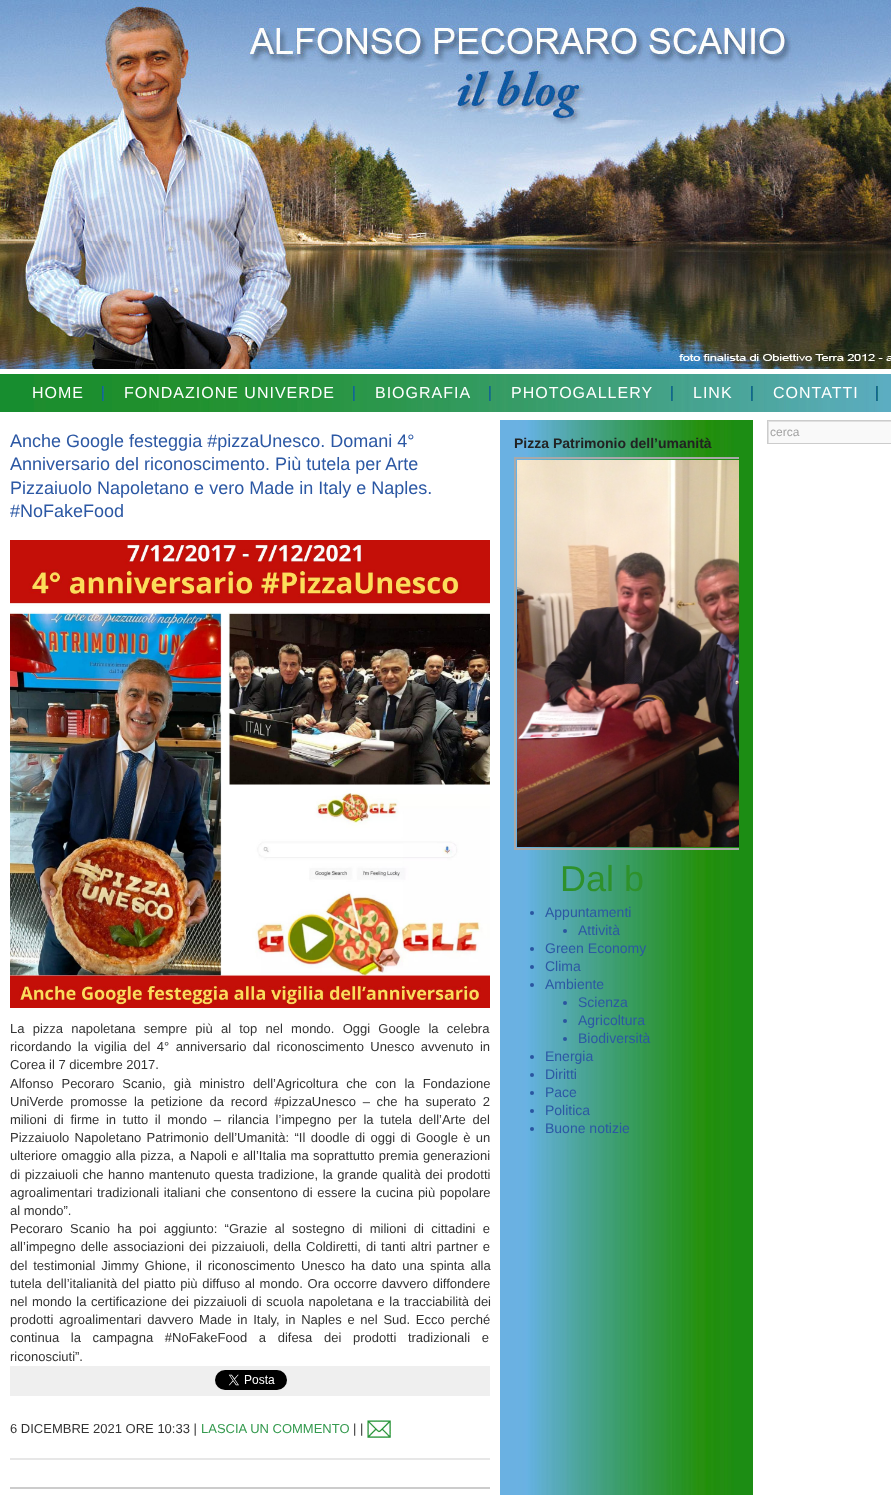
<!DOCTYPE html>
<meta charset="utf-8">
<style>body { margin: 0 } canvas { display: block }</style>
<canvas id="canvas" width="891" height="1495"></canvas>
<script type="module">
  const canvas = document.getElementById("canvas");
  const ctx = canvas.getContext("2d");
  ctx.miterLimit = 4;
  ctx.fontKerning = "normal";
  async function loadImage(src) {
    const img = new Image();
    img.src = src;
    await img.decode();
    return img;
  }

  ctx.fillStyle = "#ffffff";
  ctx.fillRect(0, 0, 891, 1495);
  ctx.drawImage(await loadImage("img1.png"), 0, 0, 891, 369);
  ctx.drawImage(await loadImage("img2.png"), 0, 374, 891, 38);
  ctx.drawImage(await loadImage("img3.png"), 102, 386, 2, 15);
  ctx.letterSpacing = "1px";
  ctx.font = "16px Liberation Sans";
  ctx.fillText("HOME", 32, 398);
  ctx.drawImage(await loadImage("img3.png"), 353, 386, 2, 15);
  ctx.fillText("FONDAZIONE UNIVERDE", 124, 398);
  ctx.drawImage(await loadImage("img3.png"), 489, 386, 2, 15);
  ctx.fillText("BIOGRAFIA", 375, 398);
  ctx.drawImage(await loadImage("img3.png"), 671, 386, 2, 15);
  ctx.fillText("PHOTOGALLERY", 511, 398);
  ctx.drawImage(await loadImage("img3.png"), 751, 386, 2, 15);
  ctx.fillText("LINK", 693, 398);
  ctx.drawImage(await loadImage("img3.png"), 876, 386, 2, 15);
  ctx.fillText("CONTATTI", 773, 398);
  ctx.drawImage(await loadImage("img4.png"), 500, 420, 253, 1075);
  ctx.fillStyle = "#cccccc";
  ctx.fillRect(10, 1487, 480, 2);
  ctx.letterSpacing = "0px";
  ctx.font = "18px Liberation Sans";
  ctx.fillStyle = "#2c58a4";
  ctx.fillText("Anche Google festeggia #pizzaUnesco. Domani 4°", 10, 447);
  ctx.fillText("Anniversario del riconoscimento. Più tutela per Arte", 10, 470);
  ctx.fillText("Pizzaiuolo Napoletano e vero Made in Italy e Naples.", 10, 494);
  ctx.fillText("#NoFakeFood", 10, 517);
  ctx.drawImage(await loadImage("img5.png"), 10, 540, 480, 468);
  ctx.wordSpacing = "4.6px";
  ctx.font = "13px Liberation Sans";
  ctx.fillStyle = "#333333";
  ctx.fillText("La pizza napoletana sempre più al top nel mondo. Oggi Google la celebra", 10, 1033);
  ctx.wordSpacing = "2.75px";
  ctx.fillText("ricordando la vigilia del 4° anniversario dal riconoscimento Unesco avvenuto in", 10, 1051);
  ctx.wordSpacing = "0px";
  ctx.fillText("Corea il 7 dicembre 2017.", 10, 1069);
  ctx.wordSpacing = "4.5px";
  ctx.fillText("Alfonso Pecoraro Scanio, già ministro dell’Agricoltura che con la Fondazione", 10, 1088);
  ctx.wordSpacing = "3.1px";
  ctx.fillText("UniVerde promosse la petizione da record #pizzaUnesco – che ha superato 2", 10, 1106);
  ctx.fillText("milioni di firme in tutto il mondo – rilancia l’impegno per la tutela dell’Arte del", 10, 1124);
  ctx.wordSpacing = "1.75px";
  ctx.fillText("Pizzaiuolo Napoletano Patrimonio dell’Umanità: “Il doodle di oggi di Google è un", 10, 1142);
  ctx.wordSpacing = "0.75px";
  ctx.fillText("ulteriore omaggio alla pizza, a Napoli e all’Italia ma soprattutto premia generazioni", 10, 1160);
  ctx.wordSpacing = "0.9px";
  ctx.fillText("di pizzaiuoli che hanno mantenuto questa tradizione, la grande qualità dei prodotti", 10, 1179);
  ctx.wordSpacing = "1px";
  ctx.fillText("agroalimentari tradizionali italiani che consentono di essere la cucina più popolare", 10, 1197);
  ctx.wordSpacing = "0px";
  ctx.fillText("al mondo”.", 10, 1215);
  ctx.wordSpacing = "3.75px";
  ctx.fillText("Pecoraro Scanio ha poi aggiunto: “Grazie al sostegno di milioni di cittadini e", 10, 1233);
  ctx.wordSpacing = "1.4px";
  ctx.fillText("all’impegno delle associazioni dei pizzaiuoli, della Coldiretti, di tanti altri partner e", 10, 1251);
  ctx.wordSpacing = "2.25px";
  ctx.fillText("del testimonial Jimmy Ghione, il riconoscimento Unesco ha dato una spinta alla", 10, 1270);
  ctx.wordSpacing = "1px";
  ctx.fillText("tutela dell’italianità del piatto più diffuso al mondo. Ora occorre davvero diffondere", 10, 1288);
  ctx.fillText("nel mondo la certificazione dei pizzaiuoli di scuola napoletana e la tracciabilità dei", 10, 1306);
  ctx.wordSpacing = "2.1px";
  ctx.fillText("prodotti agroalimentari davvero Made in Italy, in Naples e nel Sud. Ecco perché", 10, 1324);
  ctx.wordSpacing = "8px";
  ctx.fillText("continua la campagna #NoFakeFood a difesa dei prodotti tradizionali e", 10, 1342);
  ctx.wordSpacing = "0px";
  ctx.fillText("riconosciuti”.", 10, 1361);
  ctx.fillStyle = "#efefef";
  ctx.fillRect(10, 1366, 480, 30);
  ctx.drawImage(await loadImage("img6.png"), 215, 1370, 72, 20);
  ctx.fillStyle = "#333333";
  ctx.fillText("6 DICEMBRE 2021 ORE 10:33 |", 10, 1433);
  ctx.fillStyle = "#359a4f";
  ctx.fillText("LASCIA UN COMMENTO", 201, 1433);
  ctx.fillStyle = "#333333";
  ctx.fillText("| |", 353, 1433);
  ctx.drawImage(await loadImage("img7.png"), 367, 1420, 24, 18);
  ctx.fillStyle = "#e7e7e7";
  ctx.fillRect(10, 1458, 480, 2);
  ctx.font = "bold 14px Liberation Sans";
  ctx.fillStyle = "#222222";
  ctx.fillText("Pizza Patrimonio dell’umanità", 514, 448);
  ctx.save();
  ctx.beginPath();
  ctx.rect(514, 452, 225, 400);
  ctx.clip();
  ctx.strokeStyle = "#a9a9a9";
  ctx.lineWidth = 2;
  ctx.strokeRect(515, 458, 294, 391);
  ctx.restore();
  ctx.drawImage(await loadImage("img8.png"), 517, 460, 222, 387);
  ctx.font = "36px Liberation Sans";
  ctx.fillStyle = "#2e912b";
  ctx.fillText("Dal b", 560, 891);
  ctx.fillStyle = "#2a56a0";
  ctx.beginPath();
  ctx.arc(532, 913, 2, 0, Math.PI * 2);
  ctx.fill();
  ctx.font = "14px Liberation Sans";
  ctx.fillStyle = "#2c58a4";
  ctx.fillText("Appuntamenti", 545, 917);
  ctx.fillStyle = "#2a56a0";
  ctx.beginPath();
  ctx.arc(565, 931, 2, 0, Math.PI * 2);
  ctx.fill();
  ctx.fillStyle = "#2c58a4";
  ctx.fillText("Attività", 578, 935);
  ctx.fillStyle = "#2a56a0";
  ctx.beginPath();
  ctx.arc(532, 949, 2, 0, Math.PI * 2);
  ctx.fill();
  ctx.fillStyle = "#2c58a4";
  ctx.fillText("Green Economy", 545, 953);
  ctx.fillStyle = "#2a56a0";
  ctx.beginPath();
  ctx.arc(532, 967, 2, 0, Math.PI * 2);
  ctx.fill();
  ctx.fillStyle = "#2c58a4";
  ctx.fillText("Clima", 545, 971);
  ctx.fillStyle = "#2a56a0";
  ctx.beginPath();
  ctx.arc(532, 985, 2, 0, Math.PI * 2);
  ctx.fill();
  ctx.fillStyle = "#2c58a4";
  ctx.fillText("Ambiente", 545, 989);
  ctx.fillStyle = "#2a56a0";
  ctx.beginPath();
  ctx.arc(565, 1003, 2, 0, Math.PI * 2);
  ctx.fill();
  ctx.fillStyle = "#2c58a4";
  ctx.fillText("Scienza", 578, 1007);
  ctx.fillStyle = "#2a56a0";
  ctx.beginPath();
  ctx.arc(565, 1021, 2, 0, Math.PI * 2);
  ctx.fill();
  ctx.fillStyle = "#2c58a4";
  ctx.fillText("Agricoltura", 578, 1025);
  ctx.fillStyle = "#2a56a0";
  ctx.beginPath();
  ctx.arc(565, 1039, 2, 0, Math.PI * 2);
  ctx.fill();
  ctx.fillStyle = "#2c58a4";
  ctx.fillText("Biodiversità", 578, 1043);
  ctx.fillStyle = "#2a56a0";
  ctx.beginPath();
  ctx.arc(532, 1057, 2, 0, Math.PI * 2);
  ctx.fill();
  ctx.fillStyle = "#2c58a4";
  ctx.fillText("Energia", 545, 1061);
  ctx.fillStyle = "#2a56a0";
  ctx.beginPath();
  ctx.arc(532, 1075, 2, 0, Math.PI * 2);
  ctx.fill();
  ctx.fillStyle = "#2c58a4";
  ctx.fillText("Diritti", 545, 1079);
  ctx.fillStyle = "#2a56a0";
  ctx.beginPath();
  ctx.arc(532, 1093, 2, 0, Math.PI * 2);
  ctx.fill();
  ctx.fillStyle = "#2c58a4";
  ctx.fillText("Pace", 545, 1097);
  ctx.fillStyle = "#2a56a0";
  ctx.beginPath();
  ctx.arc(532, 1111, 2, 0, Math.PI * 2);
  ctx.fill();
  ctx.fillStyle = "#2c58a4";
  ctx.fillText("Politica", 545, 1115);
  ctx.fillStyle = "#2a56a0";
  ctx.beginPath();
  ctx.arc(532, 1129, 2, 0, Math.PI * 2);
  ctx.fill();
  ctx.fillStyle = "#2c58a4";
  ctx.fillText("Buone notizie", 545, 1133);
  ctx.fillStyle = "#f9f9f9";
  ctx.fillRect(769, 422, 122, 21);
  ctx.save();
  ctx.beginPath();
  ctx.rect(768, 421, 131, 22);
  ctx.clip();
  ctx.fillStyle = "#e0e0e0";
  ctx.beginPath();
  ctx.moveTo(669, 322);
  ctx.lineTo(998, 322);
  ctx.lineTo(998, 542);
  ctx.lineTo(669, 542);
  ctx.closePath();
  ctx.moveTo(769, 422);
  ctx.lineTo(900, 422);
  ctx.lineTo(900, 444);
  ctx.lineTo(769, 444);
  ctx.closePath();
  ctx.fill("evenodd");
  ctx.restore();
  ctx.strokeStyle = "#cccccc";
  ctx.strokeRect(767.5, 420.5, 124, 23);
  ctx.font = "12px Liberation Sans";
  ctx.fillStyle = "#a2a2a2";
  ctx.fillText("cerca", 770, 436);
</script>
